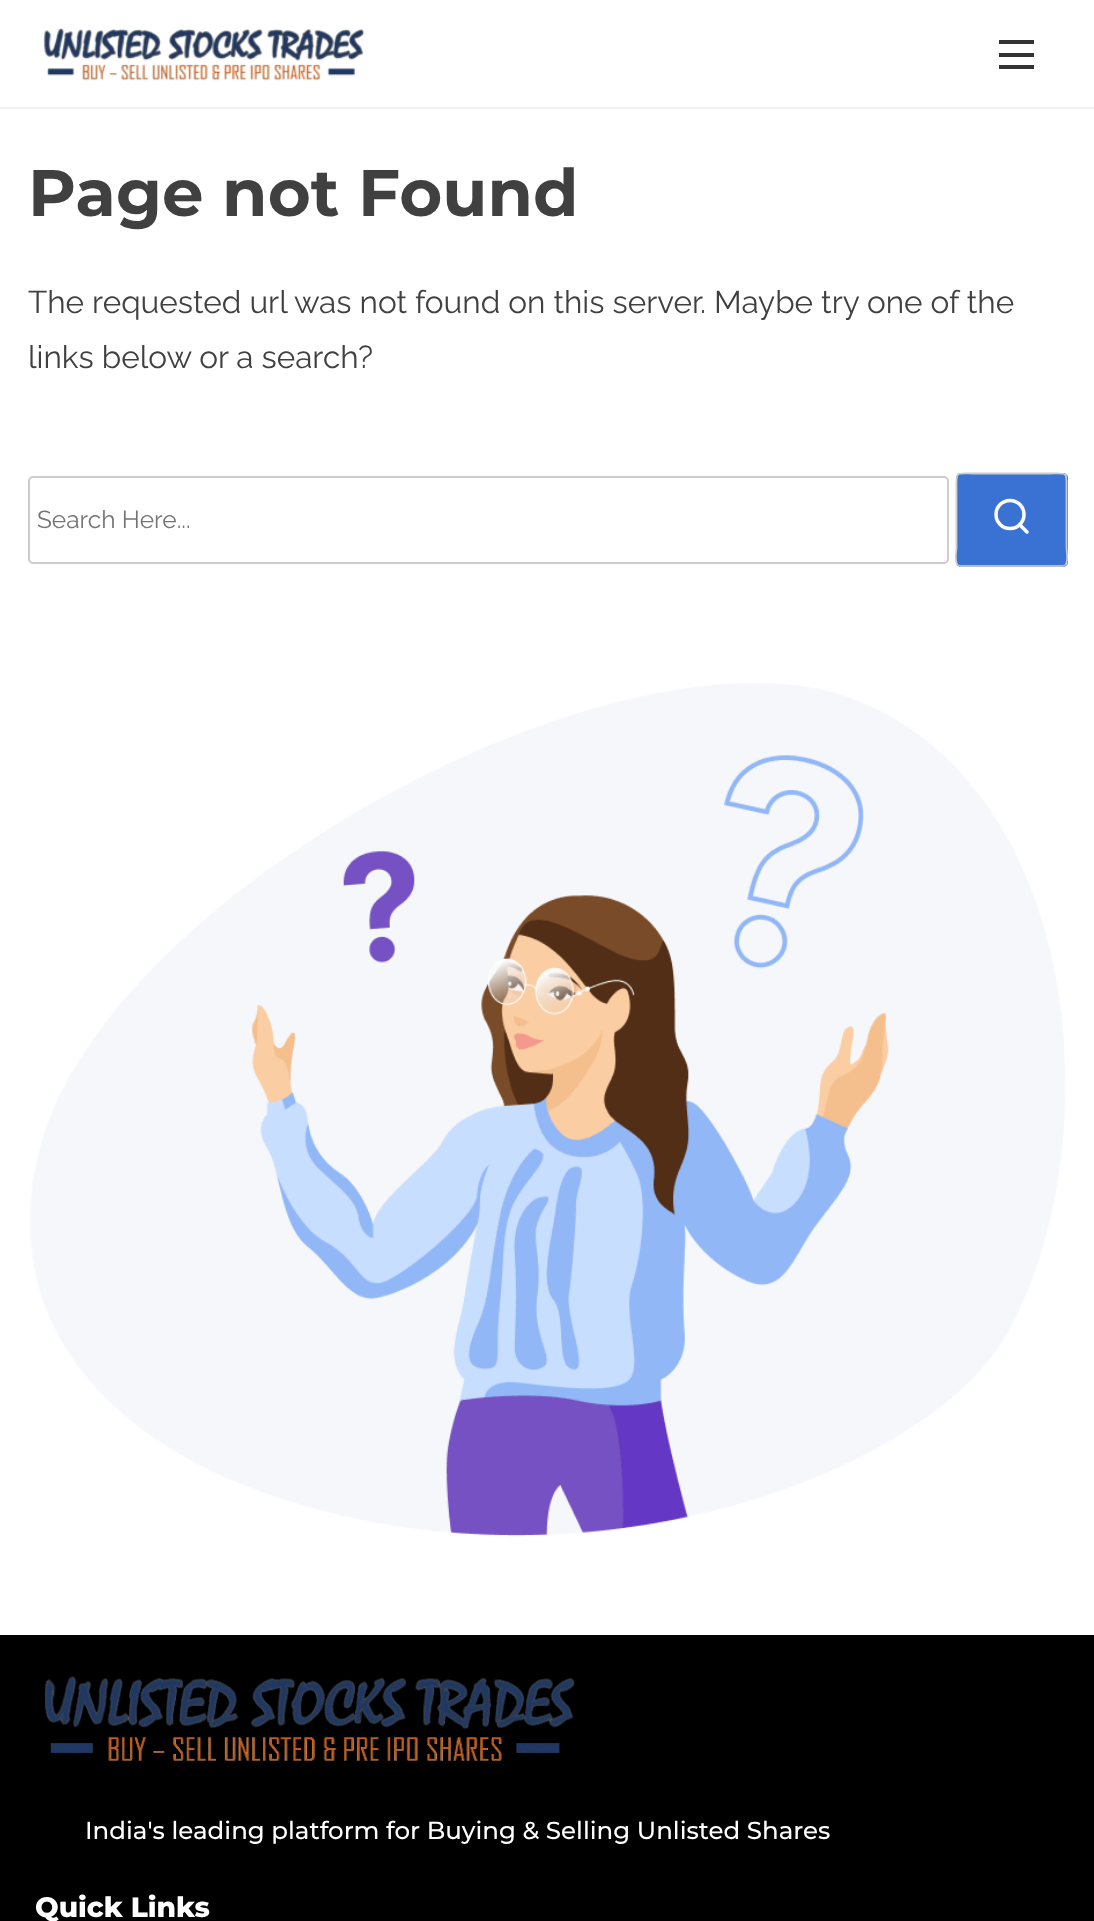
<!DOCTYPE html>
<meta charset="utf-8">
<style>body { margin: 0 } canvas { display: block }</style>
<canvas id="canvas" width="1094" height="1921"></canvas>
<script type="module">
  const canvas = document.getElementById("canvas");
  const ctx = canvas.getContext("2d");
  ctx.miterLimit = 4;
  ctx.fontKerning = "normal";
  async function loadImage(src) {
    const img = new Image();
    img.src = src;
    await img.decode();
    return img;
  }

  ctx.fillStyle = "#ffffff";
  ctx.fillRect(0, 0, 1094, 1921);
  ctx.fillStyle = "#f2f2f2";
  ctx.fillRect(0, 107, 1094, 2);
  ctx.drawImage(await loadImage("img1.png"), 43, 28, 322, 53);
  ctx.fillStyle = "#333333";
  ctx.fillRect(999, 65, 35, 4);
  ctx.fillRect(999, 40, 35, 4);
  ctx.fillRect(999, 53, 35, 4);
  ctx.font = "bold 65.75px Montserrat";
  ctx.fillStyle = "#404040";
  ctx.fillText("Page not Found", 28, 216);
  ctx.font = "31.5px Raleway";
  ctx.fillText("The requested url was not found on this server. Maybe try one of the", 28, 313);
  ctx.fillText("links below or a search?", 28, 368);
  ctx.beginPath();
  ctx.roundRect(29, 477, 919, 86, 4);
  ctx.strokeStyle = "#cccccc";
  ctx.lineWidth = 2;
  ctx.stroke();
  ctx.font = "24.5px Raleway";
  ctx.fillStyle = "#757575";
  ctx.fillText("Search Here...", 37, 528);
  ctx.fillStyle = "#3a72d3";
  ctx.beginPath();
  ctx.roundRect(956, 473, 112, 94, 5);
  ctx.fill();
  ctx.beginPath();
  ctx.moveTo(1065.5, 565);
  ctx.lineTo(1062.5, 566);
  ctx.lineTo(960.5, 566);
  ctx.lineTo(957.5, 565);
  ctx.strokeStyle = "#bbbbbb";
  ctx.lineWidth = 1.8;
  ctx.stroke();
  ctx.beginPath();
  ctx.moveTo(957.5, 565);
  ctx.bezierCurveTo(954.5, 561.5, 956.5, 548.5, 956.5, 548);
  ctx.lineTo(956.5, 492);
  ctx.bezierCurveTo(956.5, 469.5, 954, 473.5, 977.5, 473.5);
  ctx.lineTo(1045.5, 473.5);
  ctx.bezierCurveTo(1069, 473.5, 1066.5, 469.5, 1066.5, 492);
  ctx.lineTo(1066.5, 548);
  ctx.bezierCurveTo(1066.5, 548.5, 1068.5, 561.5, 1065.5, 565);
  ctx.strokeStyle = "#cccccc";
  ctx.stroke();
  ctx.beginPath();
  ctx.arc(1010, 514.5, 14, 0, Math.PI * 2);
  ctx.strokeStyle = "#ffffff";
  ctx.lineWidth = 3.5;
  ctx.stroke();
  ctx.beginPath();
  ctx.moveTo(1027, 532);
  ctx.lineTo(1019.5, 524.5);
  ctx.lineCap = "round";
  ctx.lineJoin = "round";
  ctx.stroke();
  ctx.drawImage(await loadImage("img2.png"), 30, 683, 1035, 854);
  ctx.fillStyle = "#000000";
  ctx.fillRect(0, 1635, 1094, 286);
  ctx.drawImage(await loadImage("img3.png"), 44, 1676, 531, 85);
  ctx.font = "500 24.5px Montserrat";
  ctx.fillStyle = "#ffffff";
  ctx.fillText("India's leading platform for Buying & Selling Unlisted Shares", 85, 1839);
  ctx.font = "800 28px Montserrat";
  ctx.fillText("Quick Links", 35, 1917);
</script>
